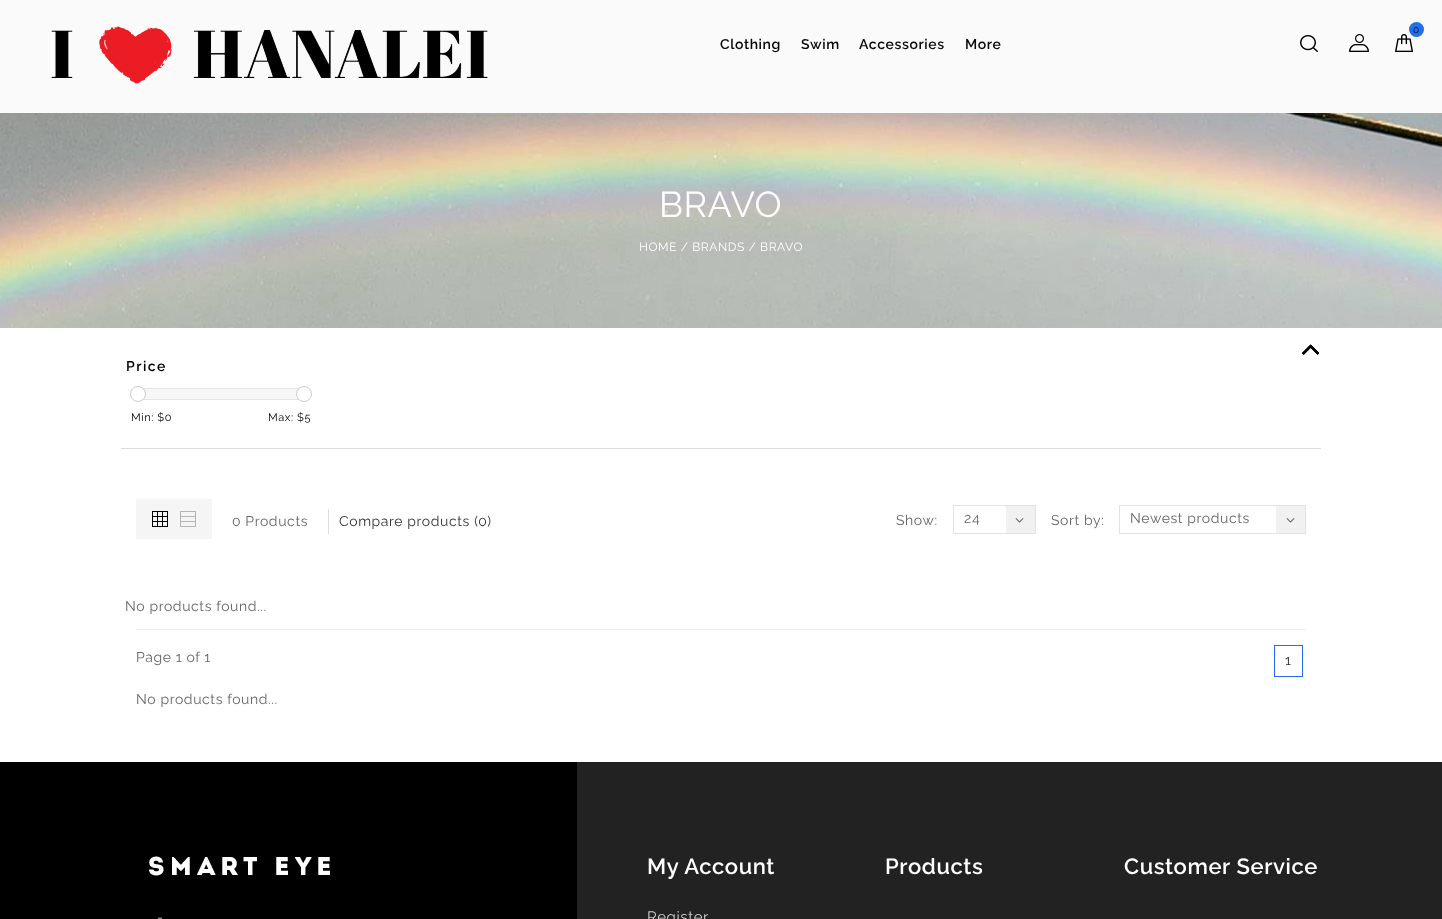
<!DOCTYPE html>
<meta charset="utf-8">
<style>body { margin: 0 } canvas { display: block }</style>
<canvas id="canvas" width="1442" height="919"></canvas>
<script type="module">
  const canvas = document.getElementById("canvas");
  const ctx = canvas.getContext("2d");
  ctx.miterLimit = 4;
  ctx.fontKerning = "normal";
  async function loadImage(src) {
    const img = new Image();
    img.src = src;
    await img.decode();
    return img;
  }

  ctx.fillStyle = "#ffffff";
  ctx.fillRect(0, 0, 1442, 919);
  ctx.fillStyle = "#fafafa";
  ctx.fillRect(0, 0, 1442, 113);
  ctx.drawImage(await loadImage("img1.png"), 51, 26, 437, 58);
  ctx.drawImage(await loadImage("img2.png"), 1395, 34, 18, 18);
  ctx.fillStyle = "#246ee9";
  ctx.beginPath();
  ctx.arc(1416.5, 29.5, 7.5, 0, Math.PI * 2);
  ctx.fill();
  ctx.letterSpacing = "0.6px";
  ctx.font = "10px Raleway";
  ctx.fillStyle = "#080808";
  ctx.fillText("0", 1413, 33);
  ctx.drawImage(await loadImage("img3.png"), 1300, 35, 18, 17);
  ctx.drawImage(await loadImage("img4.png"), 1349, 34, 20, 18);
  ctx.font = "600 14px Raleway";
  ctx.fillText("Clothing", 720, 49);
  ctx.fillText("Swim", 801, 49);
  ctx.fillText("Accessories", 859, 49);
  ctx.fillText("More", 965, 49);
  ctx.drawImage(await loadImage("img5.png"), 0, 113, 1442, 215);
  ctx.font = "36px Raleway";
  ctx.fillStyle = "#ffffff";
  ctx.fillText("BRAVO", 659, 217);
  ctx.font = "12px Raleway";
  ctx.fillText("HOME / BRANDS / BRAVO", 639, 251);
  ctx.drawImage(await loadImage("img6.png"), 1302, 344, 17, 11);
  ctx.drawImage(await loadImage("img7.png"), 1302, 344, 17, 11);
  ctx.drawImage(await loadImage("img8.png"), 1302, 344, 17, 11);
  ctx.drawImage(await loadImage("img9.png"), 1302, 344, 17, 11);
  ctx.fillStyle = "#dddddd";
  ctx.fillRect(121, 448, 1200, 1);
  ctx.letterSpacing = "1.5px";
  ctx.font = "600 14px Raleway";
  ctx.fillStyle = "#000000";
  ctx.fillText("Price", 126, 371);
  ctx.fillStyle = "#f7f7f7";
  ctx.fillRect(144, 389, 154, 10);
  ctx.strokeStyle = "#e5e5e5";
  ctx.strokeRect(139.5, 388.5, 165, 11);
  ctx.fillStyle = "#ffffff";
  ctx.beginPath();
  ctx.arc(138, 394, 7.5, 0, Math.PI * 2);
  ctx.fill();
  ctx.strokeStyle = "#cccccc";
  ctx.stroke();
  ctx.beginPath();
  ctx.arc(304, 394, 7.5, 0, Math.PI * 2);
  ctx.fill();
  ctx.stroke();
  ctx.letterSpacing = "0.6px";
  ctx.font = "11px Raleway";
  ctx.fillStyle = "#000000";
  ctx.fillText("Min: $0", 131, 421);
  ctx.fillText("Max: $5", 268, 421);
  ctx.fillStyle = "#f5f5f5";
  ctx.fillRect(136, 499, 76, 40);
  ctx.drawImage(await loadImage("img10.png"), 152, 511, 16, 16);
  ctx.drawImage(await loadImage("img11.png"), 180, 511, 16, 16);
  ctx.font = "14px Raleway";
  ctx.fillStyle = "#666666";
  ctx.fillText("0 Products", 232, 526);
  ctx.fillStyle = "#dddddd";
  ctx.fillRect(328, 509, 1, 25);
  ctx.fillStyle = "#333333";
  ctx.fillText("Compare products (0)", 339, 526);
  ctx.fillStyle = "#666666";
  ctx.fillText("Show:", 896, 525);
  ctx.strokeStyle = "#e2e2e2";
  ctx.strokeRect(953.5, 505.5, 82, 28);
  ctx.fillText("24", 964, 523);
  ctx.fillStyle = "#f1f1f1";
  ctx.fillRect(1006, 506, 29, 27);
  ctx.drawImage(await loadImage("img12.png"), 1015, 518, 9, 5);
  ctx.fillStyle = "#666666";
  ctx.fillText("Sort by:", 1051, 525);
  ctx.strokeRect(1119.5, 505.5, 186, 28);
  ctx.fillText("Newest products", 1130, 523);
  ctx.fillStyle = "#f1f1f1";
  ctx.fillRect(1276, 506, 29, 27);
  ctx.drawImage(await loadImage("img12.png"), 1286, 518, 9, 5);
  ctx.fillStyle = "#666666";
  ctx.fillText("No products found...", 125, 611);
  ctx.fillStyle = "#eeeeee";
  ctx.fillRect(136, 629, 1170, 1);
  ctx.fillStyle = "#666666";
  ctx.fillText("Page 1 of 1", 136, 662);
  ctx.strokeStyle = "#246ee9";
  ctx.strokeRect(1274.5, 645.5, 28, 31);
  ctx.fillStyle = "#333333";
  ctx.fillText("1", 1285, 665);
  ctx.fillStyle = "#666666";
  ctx.fillText("No products found...", 136, 704);
  ctx.fillStyle = "#000000";
  ctx.fillRect(0, 762, 577, 157);
  ctx.drawImage(await loadImage("img13.png"), 149, 856, 181, 20);
  ctx.fillStyle = "#cccccc";
  ctx.fillText("-", 157, 922);
  ctx.fillStyle = "#222222";
  ctx.fillRect(577, 762, 865, 157);
  ctx.font = "600 22px Raleway";
  ctx.fillStyle = "#ffffff";
  ctx.fillText("My Account", 647, 874);
  ctx.font = "15px Raleway";
  ctx.fillStyle = "#cccccc";
  ctx.fillText("Register", 647, 922);
  ctx.font = "600 22px Raleway";
  ctx.fillStyle = "#ffffff";
  ctx.fillText("Products", 885, 874);
  ctx.fillText("Customer Service", 1124, 874);
</script>
